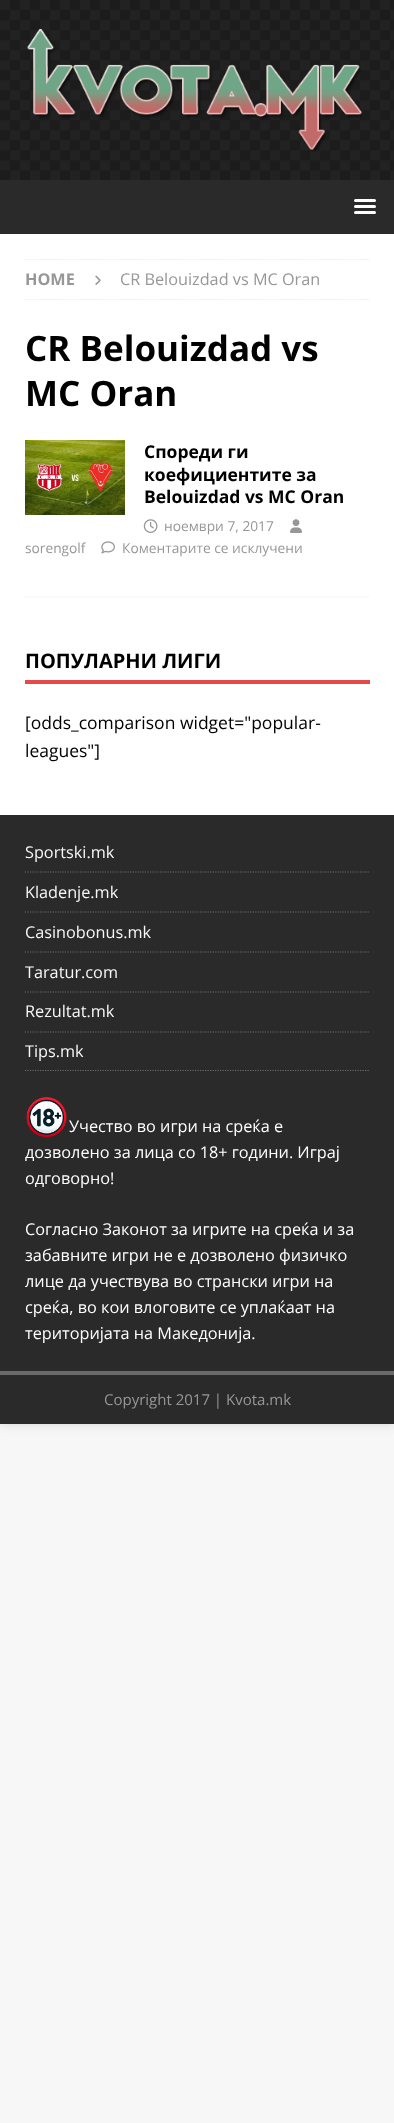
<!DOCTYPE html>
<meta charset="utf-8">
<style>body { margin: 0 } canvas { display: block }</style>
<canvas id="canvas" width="394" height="2123"></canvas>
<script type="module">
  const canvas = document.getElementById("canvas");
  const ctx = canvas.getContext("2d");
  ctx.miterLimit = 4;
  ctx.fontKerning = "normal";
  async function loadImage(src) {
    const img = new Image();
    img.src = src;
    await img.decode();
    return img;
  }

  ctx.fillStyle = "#f7f7f7";
  ctx.fillRect(0, 0, 394, 2123);
  ctx.fillStyle = "rgba(50, 50, 50, 0.17)";
  ctx.filter = "blur(6px)";
  ctx.beginPath();
  ctx.rect(0, 0, 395, 1424);
  ctx.fill();
  ctx.filter = "none";
  ctx.drawImage(await loadImage("img1.png"), 0, 0, 394, 180);
  ctx.drawImage(await loadImage("img2.png"), 27, 28, 335, 124);
  ctx.fillStyle = "#2a2a2a";
  ctx.fillRect(0, 180, 394, 54);
  ctx.fillStyle = "#ffffff";
  ctx.beginPath();
  ctx.roundRect(354, 199, 22, 3, 1.5);
  ctx.fill();
  ctx.beginPath();
  ctx.roundRect(354, 205, 22, 3, 1.5);
  ctx.fill();
  ctx.beginPath();
  ctx.roundRect(354, 211, 22, 3, 1.5);
  ctx.fill();
  ctx.fillRect(0, 234, 394, 581);
  ctx.save();
  ctx.beginPath();
  ctx.rect(25, 259, 345, 339);
  ctx.clip();
  ctx.beginPath();
  ctx.moveTo(25, 259.5);
  ctx.lineTo(370, 259.5);
  ctx.strokeStyle = "#ebebeb";
  ctx.lineWidth = 1.2;
  ctx.setLineDash([1.25, 1.25]);
  ctx.stroke();
  ctx.restore();
  ctx.beginPath();
  ctx.moveTo(25, 299.5);
  ctx.lineTo(370, 299.5);
  ctx.strokeStyle = "#ebebeb";
  ctx.lineWidth = 1.2;
  ctx.setLineDash([1.25, 1.25]);
  ctx.stroke();
  ctx.font = "bold 16.25px Open Sans";
  ctx.fillStyle = "#979797";
  ctx.fillText("HOME", 25, 285);
  ctx.drawImage(await loadImage("img3.png"), 95, 275, 6, 10);
  ctx.font = "16.25px Open Sans";
  ctx.fillText("CR Belouizdad vs MC Oran", 120, 285);
  ctx.font = "bold 35px Open Sans";
  ctx.fillStyle = "#000000";
  ctx.fillText("CR Belouizdad vs", 25, 361);
  ctx.fillText("MC Oran", 25, 406);
  ctx.beginPath();
  ctx.moveTo(25, 597);
  ctx.lineTo(370, 597);
  ctx.stroke();
  ctx.drawImage(await loadImage("img4.png"), 25, 440, 100, 75);
  ctx.font = "bold 17.5px Open Sans";
  ctx.fillText("Спореди ги", 144, 458);
  ctx.fillText("коефициентите за", 144, 481);
  ctx.fillText("Belouizdad vs MC Oran", 144, 503);
  ctx.drawImage(await loadImage("img5.png"), 143, 519, 15, 14);
  ctx.font = "13.75px Open Sans";
  ctx.fillStyle = "#979797";
  ctx.fillText("ноември 7, 2017", 164, 531);
  ctx.drawImage(await loadImage("img6.png"), 290, 519, 12, 14);
  ctx.fillText("sorengolf", 25, 553);
  ctx.drawImage(await loadImage("img7.png"), 101, 541, 14, 13);
  ctx.fillText("Коментарите се исклучени", 122, 553);
  ctx.fillStyle = "#e64946";
  ctx.fillRect(25, 680, 345, 4);
  ctx.font = "bold 20px Open Sans";
  ctx.fillStyle = "#000000";
  ctx.fillText("ПОПУЛАРНИ ЛИГИ", 25, 668);
  ctx.font = "17.5px Open Sans";
  ctx.fillText("[odds_comparison widget=\"popular-", 25, 729);
  ctx.fillText("leagues\"]", 25, 757);
  ctx.fillStyle = "#2a2a2a";
  ctx.fillRect(0, 815, 394, 556);
  ctx.beginPath();
  ctx.moveTo(25, 872);
  ctx.lineTo(370, 872);
  ctx.strokeStyle = "#6a6a6a";
  ctx.stroke();
  ctx.font = "16.25px Open Sans";
  ctx.fillStyle = "#f7f7f7";
  ctx.fillText("Sportski.mk", 25, 858);
  ctx.beginPath();
  ctx.moveTo(25, 912);
  ctx.lineTo(370, 912);
  ctx.stroke();
  ctx.fillText("Kladenje.mk", 25, 898);
  ctx.beginPath();
  ctx.moveTo(25, 952);
  ctx.lineTo(370, 952);
  ctx.stroke();
  ctx.fillText("Casinobonus.mk", 25, 938);
  ctx.beginPath();
  ctx.moveTo(25, 992);
  ctx.lineTo(370, 992);
  ctx.stroke();
  ctx.fillText("Taratur.com", 25, 978);
  ctx.beginPath();
  ctx.moveTo(25, 1032);
  ctx.lineTo(370, 1032);
  ctx.stroke();
  ctx.fillText("Rezultat.mk", 25, 1017);
  ctx.save();
  ctx.beginPath();
  ctx.rect(25, 840, 345, 231);
  ctx.clip();
  ctx.beginPath();
  ctx.moveTo(25, 1070.5);
  ctx.lineTo(370, 1070.5);
  ctx.stroke();
  ctx.restore();
  ctx.fillText("Tips.mk", 25, 1057);
  ctx.drawImage(await loadImage("img8.png"), 26, 1097, 41, 41);
  ctx.fillStyle = "#ffffff";
  ctx.fillText("Учество во игри на среќа е", 69, 1132);
  ctx.fillText("дозволено за лица со 18+ години. Играј", 25, 1158);
  ctx.fillText("одговорно!", 25, 1184);
  ctx.fillText("Согласно Законот за игрите на среќа и за", 25, 1235);
  ctx.fillText("забавните игри не е дозволено физичко", 25, 1261);
  ctx.fillText("лице да учествува во странски игри на", 25, 1287);
  ctx.fillText("среќа, во кои влоговите се уплаќаат на", 25, 1313);
  ctx.fillText("територијата на Македонија.", 25, 1339);
  ctx.fillStyle = "#2a2a2a";
  ctx.fillRect(0, 1375, 394, 49);
  ctx.fillStyle = "#6a6a6a";
  ctx.fillRect(0, 1371, 394, 4);
  ctx.font = "15px Open Sans";
  ctx.fillStyle = "#979797";
  ctx.fillText("Copyright 2017 | Kvota.mk", 104, 1405);
</script>
